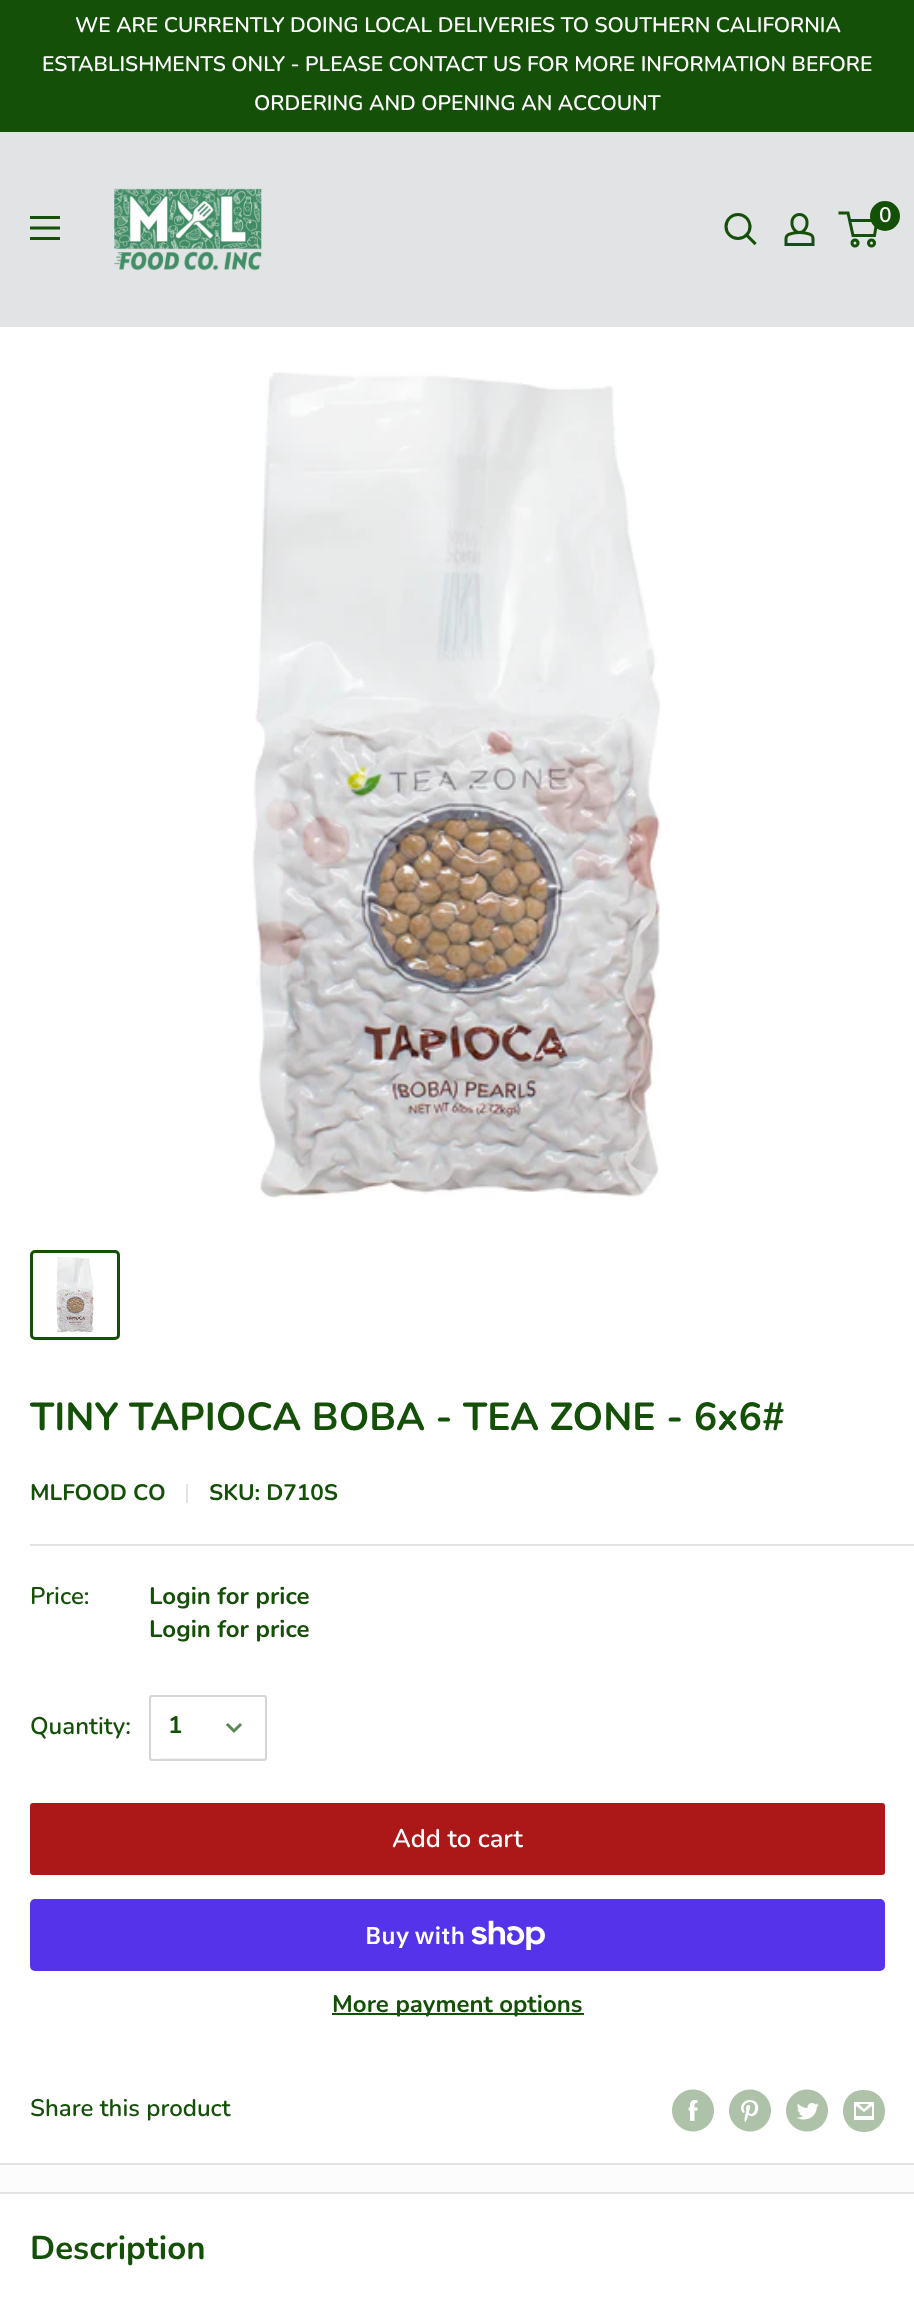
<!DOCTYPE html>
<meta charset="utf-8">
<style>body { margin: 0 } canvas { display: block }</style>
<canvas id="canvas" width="914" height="2303"></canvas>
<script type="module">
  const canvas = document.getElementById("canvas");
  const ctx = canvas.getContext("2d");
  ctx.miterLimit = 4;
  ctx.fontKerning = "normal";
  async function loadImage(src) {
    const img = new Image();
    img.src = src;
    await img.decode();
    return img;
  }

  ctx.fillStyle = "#fcfcfc";
  ctx.fillRect(0, 0, 914, 2303);
  ctx.fillStyle = "#145008";
  ctx.fillRect(0, 0, 914, 132);
  ctx.font = "600 21px Nunito";
  ctx.fillStyle = "#ffffff";
  ctx.fillText("WE ARE CURRENTLY DOING LOCAL DELIVERIES TO SOUTHERN CALIFORNIA", 75, 32);
  ctx.fillText("ESTABLISHMENTS ONLY - PLEASE CONTACT US FOR MORE INFORMATION BEFORE", 42, 71);
  ctx.fillText("ORDERING AND OPENING AN ACCOUNT", 254, 110);
  ctx.fillStyle = "#e1e3e4";
  ctx.fillRect(0, 132, 914, 195);
  ctx.drawImage(await loadImage("img1.png"), 30, 216, 30, 24);
  ctx.drawImage(await loadImage("img2.png"), 114, 188, 148, 83);
  ctx.beginPath();
  ctx.moveTo(754.5, 243);
  ctx.lineTo(746.5, 235);
  ctx.strokeStyle = "#145008";
  ctx.lineWidth = 3.1;
  ctx.lineCap = "square";
  ctx.stroke();
  ctx.beginPath();
  ctx.arc(738, 226.5, 12, 0, Math.PI * 2);
  ctx.stroke();
  ctx.drawImage(await loadImage("img3.png"), 784, 213, 31, 33);
  ctx.beginPath();
  ctx.arc(855, 243, 3, 0, Math.PI * 2);
  ctx.lineWidth = 3;
  ctx.stroke();
  ctx.beginPath();
  ctx.arc(871.5, 243, 3, 0, Math.PI * 2);
  ctx.stroke();
  ctx.beginPath();
  ctx.moveTo(849.5, 220.5);
  ctx.lineTo(877, 220.5);
  ctx.lineTo(874.5, 235.5);
  ctx.lineTo(853, 235.5);
  ctx.lineTo(848, 213);
  ctx.lineTo(838.5, 213);
  ctx.lineCap = "butt";
  ctx.stroke();
  ctx.fillStyle = "#145008";
  ctx.beginPath();
  ctx.arc(885, 216, 15, 0, Math.PI * 2);
  ctx.fill();
  ctx.fillStyle = "#ffffff";
  ctx.fillText("0", 879, 222);
  ctx.fillRect(0, 327, 914, 1836);
  ctx.drawImage(await loadImage("img4.png"), 252, 372, 409, 827);
  ctx.beginPath();
  ctx.roundRect(31.5, 1251.5, 87, 87, 3.5);
  ctx.stroke();
  ctx.drawImage(await loadImage("img5.png"), 55, 1257, 39, 76);
  ctx.fillStyle = "#e1e3e4";
  ctx.fillRect(0, 2163, 914, 2);
  ctx.font = "bold 39px Nunito";
  ctx.fillStyle = "#145008";
  ctx.fillText("TINY TAPIOCA BOBA - TEA ZONE - 6x6#", 30, 1430);
  ctx.font = "bold 22.5px Nunito";
  ctx.fillText("MLFOOD CO", 30, 1500);
  ctx.fillStyle = "#e1e3e4";
  ctx.fillRect(186, 1484, 2, 19);
  ctx.fillStyle = "#145008";
  ctx.fillText("SKU: D710S", 209, 1500);
  ctx.fillStyle = "#e1e3e4";
  ctx.fillRect(30, 1544, 884, 2);
  ctx.font = "600 24px Nunito";
  ctx.fillStyle = "#145008";
  ctx.fillText("Price:", 30, 1604);
  ctx.font = "bold 24px Nunito";
  ctx.fillText("Login for price", 149, 1604);
  ctx.fillText("Login for price", 149, 1637);
  ctx.font = "600 24px Nunito";
  ctx.fillText("Quantity:", 30, 1734);
  ctx.fillStyle = "#f2f3f3";
  ctx.beginPath();
  ctx.moveTo(150, 1757);
  ctx.lineTo(150, 1758);
  ctx.bezierCurveTo(150, 1759, 151, 1760, 152, 1760);
  ctx.lineTo(264, 1760);
  ctx.bezierCurveTo(265, 1760, 266, 1759, 266, 1758);
  ctx.lineTo(266, 1716);
  ctx.lineTo(265, 1757);
  ctx.lineTo(264, 1758);
  ctx.lineTo(166, 1758);
  ctx.bezierCurveTo(163, 1758, 152, 1760, 150, 1757);
  ctx.closePath();
  ctx.fill();
  ctx.beginPath();
  ctx.roundRect(150, 1696, 116, 64, 2);
  ctx.strokeStyle = "#d4d6d8";
  ctx.lineWidth = 2;
  ctx.stroke();
  ctx.font = "bold 24px Nunito";
  ctx.fillStyle = "#145008";
  ctx.fillText("1", 168, 1733);
  ctx.beginPath();
  ctx.moveTo(240, 1725);
  ctx.lineTo(234, 1731);
  ctx.lineTo(228, 1725);
  ctx.strokeStyle = "#5b8552";
  ctx.lineWidth = 3;
  ctx.lineCap = "square";
  ctx.stroke();
  ctx.fillStyle = "#ac1818";
  ctx.beginPath();
  ctx.roundRect(30, 1803, 855, 72, 3);
  ctx.fill();
  ctx.font = "600 25.5px Nunito";
  ctx.fillStyle = "#ffffff";
  ctx.fillText("Add to cart", 392, 1847);
  ctx.fillStyle = "#5433eb";
  ctx.beginPath();
  ctx.roundRect(30, 1899, 855, 72, 5);
  ctx.fill();
  ctx.font = "600 24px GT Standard";
  ctx.fillStyle = "#ffffff";
  ctx.fillText("Buy with", 365, 1944);
  ctx.drawImage(await loadImage("img6.png"), 471, 1920, 74, 30);
  ctx.fillStyle = "#145008";
  ctx.fillRect(332, 2013, 252, 2);
  ctx.font = "bold 24px Nunito";
  ctx.fillText("More payment options", 332, 2012);
  ctx.font = "600 24px Nunito";
  ctx.fillText("Share this product", 30, 2116);
  ctx.drawImage(await loadImage("img7.png"), 672, 2089, 42, 43);
  ctx.drawImage(await loadImage("img8.png"), 729, 2089, 42, 43);
  ctx.drawImage(await loadImage("img9.png"), 786, 2089, 42, 43);
  ctx.fillStyle = "#adc2a9";
  ctx.beginPath();
  ctx.moveTo(864, 2132);
  ctx.bezierCurveTo(836, 2132, 836, 2089, 864, 2090);
  ctx.bezierCurveTo(892, 2090, 892, 2132, 864, 2132);
  ctx.closePath();
  ctx.moveTo(859, 2104);
  ctx.lineTo(869, 2104);
  ctx.lineTo(864, 2109);
  ctx.closePath();
  ctx.moveTo(872, 2106);
  ctx.lineTo(872, 2116);
  ctx.lineTo(856, 2116);
  ctx.lineTo(856, 2106);
  ctx.lineTo(864, 2112);
  ctx.closePath();
  ctx.moveTo(874, 2102);
  ctx.lineTo(854, 2102);
  ctx.lineTo(854, 2120);
  ctx.lineTo(874, 2120);
  ctx.closePath();
  ctx.fill();
  ctx.fillStyle = "#ffffff";
  ctx.fillRect(0, 2194, 914, 109);
  ctx.fillStyle = "#e1e3e4";
  ctx.fillRect(0, 2192, 914, 2);
  ctx.font = "bold 33px Nunito";
  ctx.fillStyle = "#145008";
  ctx.fillText("Description", 30, 2259);
</script>
